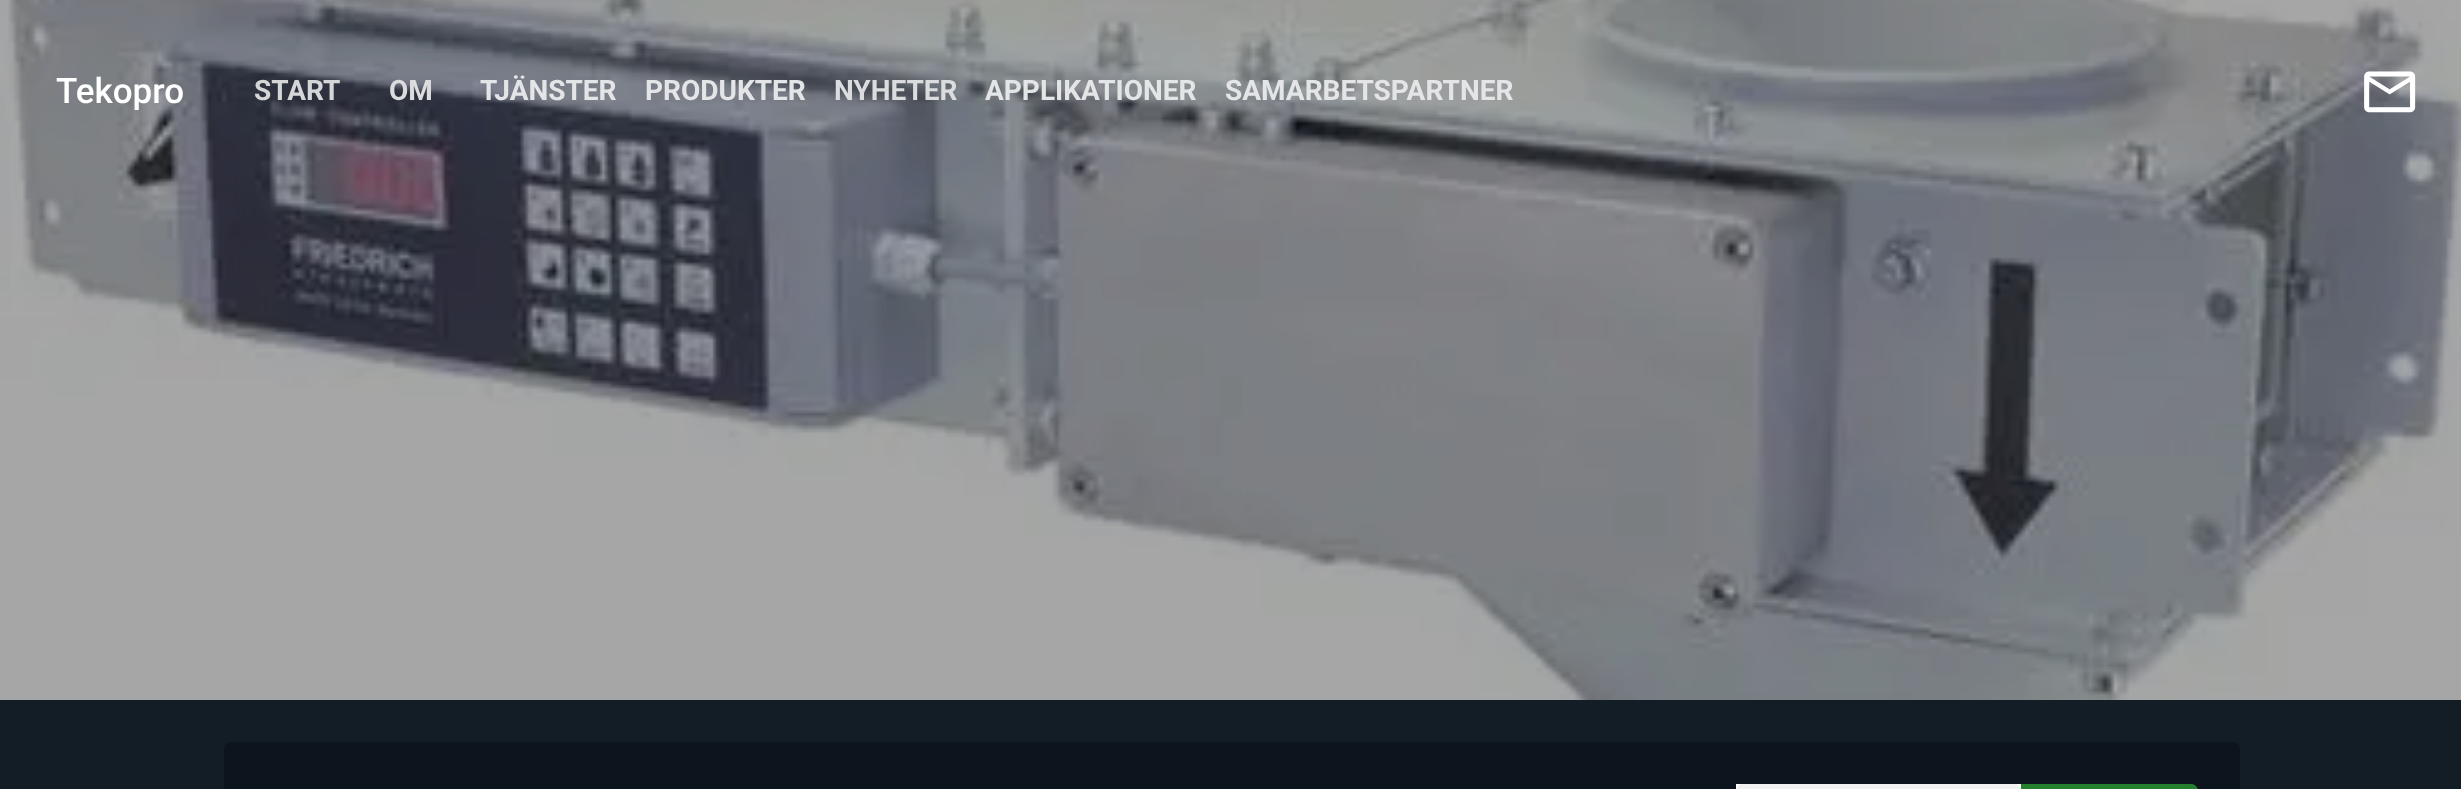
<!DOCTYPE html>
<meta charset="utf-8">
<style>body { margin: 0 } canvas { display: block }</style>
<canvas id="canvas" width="2461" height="789"></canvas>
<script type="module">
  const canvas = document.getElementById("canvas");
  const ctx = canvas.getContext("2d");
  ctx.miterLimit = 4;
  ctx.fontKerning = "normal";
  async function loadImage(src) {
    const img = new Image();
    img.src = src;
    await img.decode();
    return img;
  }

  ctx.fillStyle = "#121d26";
  ctx.fillRect(0, 0, 2461, 789);
  ctx.drawImage(await loadImage("img1.png"), 0, 0, 2461, 700);
  ctx.fillStyle = "#0c151d";
  ctx.beginPath();
  ctx.roundRect(224, 742, 2016, 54, 7);
  ctx.fill();
  ctx.fillStyle = "#ffffff";
  ctx.fillRect(1736, 784, 285, 5);
  ctx.fillStyle = "#f0f0f0";
  ctx.beginPath();
  ctx.moveTo(1743, 784);
  ctx.lineTo(2014, 784);
  ctx.bezierCurveTo(2018, 784, 2021, 787, 2021, 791);
  ctx.lineTo(2021, 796);
  ctx.lineTo(1736, 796);
  ctx.lineTo(1736, 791);
  ctx.bezierCurveTo(1736, 787, 1739, 784, 1743, 784);
  ctx.closePath();
  ctx.fill();
  ctx.fillStyle = "#24802d";
  ctx.beginPath();
  ctx.moveTo(2021, 784);
  ctx.lineTo(2191, 784);
  ctx.bezierCurveTo(2195, 784, 2198, 787, 2198, 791);
  ctx.lineTo(2198, 789);
  ctx.bezierCurveTo(2198, 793, 2195, 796, 2191, 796);
  ctx.lineTo(2021, 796);
  ctx.closePath();
  ctx.fill();
  ctx.font = "500 35px Roboto";
  ctx.fillStyle = "#ffffff";
  ctx.fillText("Tekopro", 56, 103);
  ctx.font = "bold 28px Roboto";
  ctx.fillStyle = "#d5d6d8";
  ctx.fillText("START", 254, 100);
  ctx.fillStyle = "#dbdcde";
  ctx.fillText("OM", 389, 100);
  ctx.fillStyle = "#e4e5e7";
  ctx.fillText("TJÄNSTER", 480, 100);
  ctx.fillText("PRODUKTER", 645, 100);
  ctx.fillStyle = "#dbdcde";
  ctx.fillText("NYHETER", 834, 100);
  ctx.fillStyle = "#e4e5e7";
  ctx.fillText("APPLIKATIONER", 985, 100);
  ctx.fillText("SAMARBETSPARTNER", 1225, 100);
  ctx.drawImage(await loadImage("img2.png"), 2364, 71, 52, 42);
</script>
